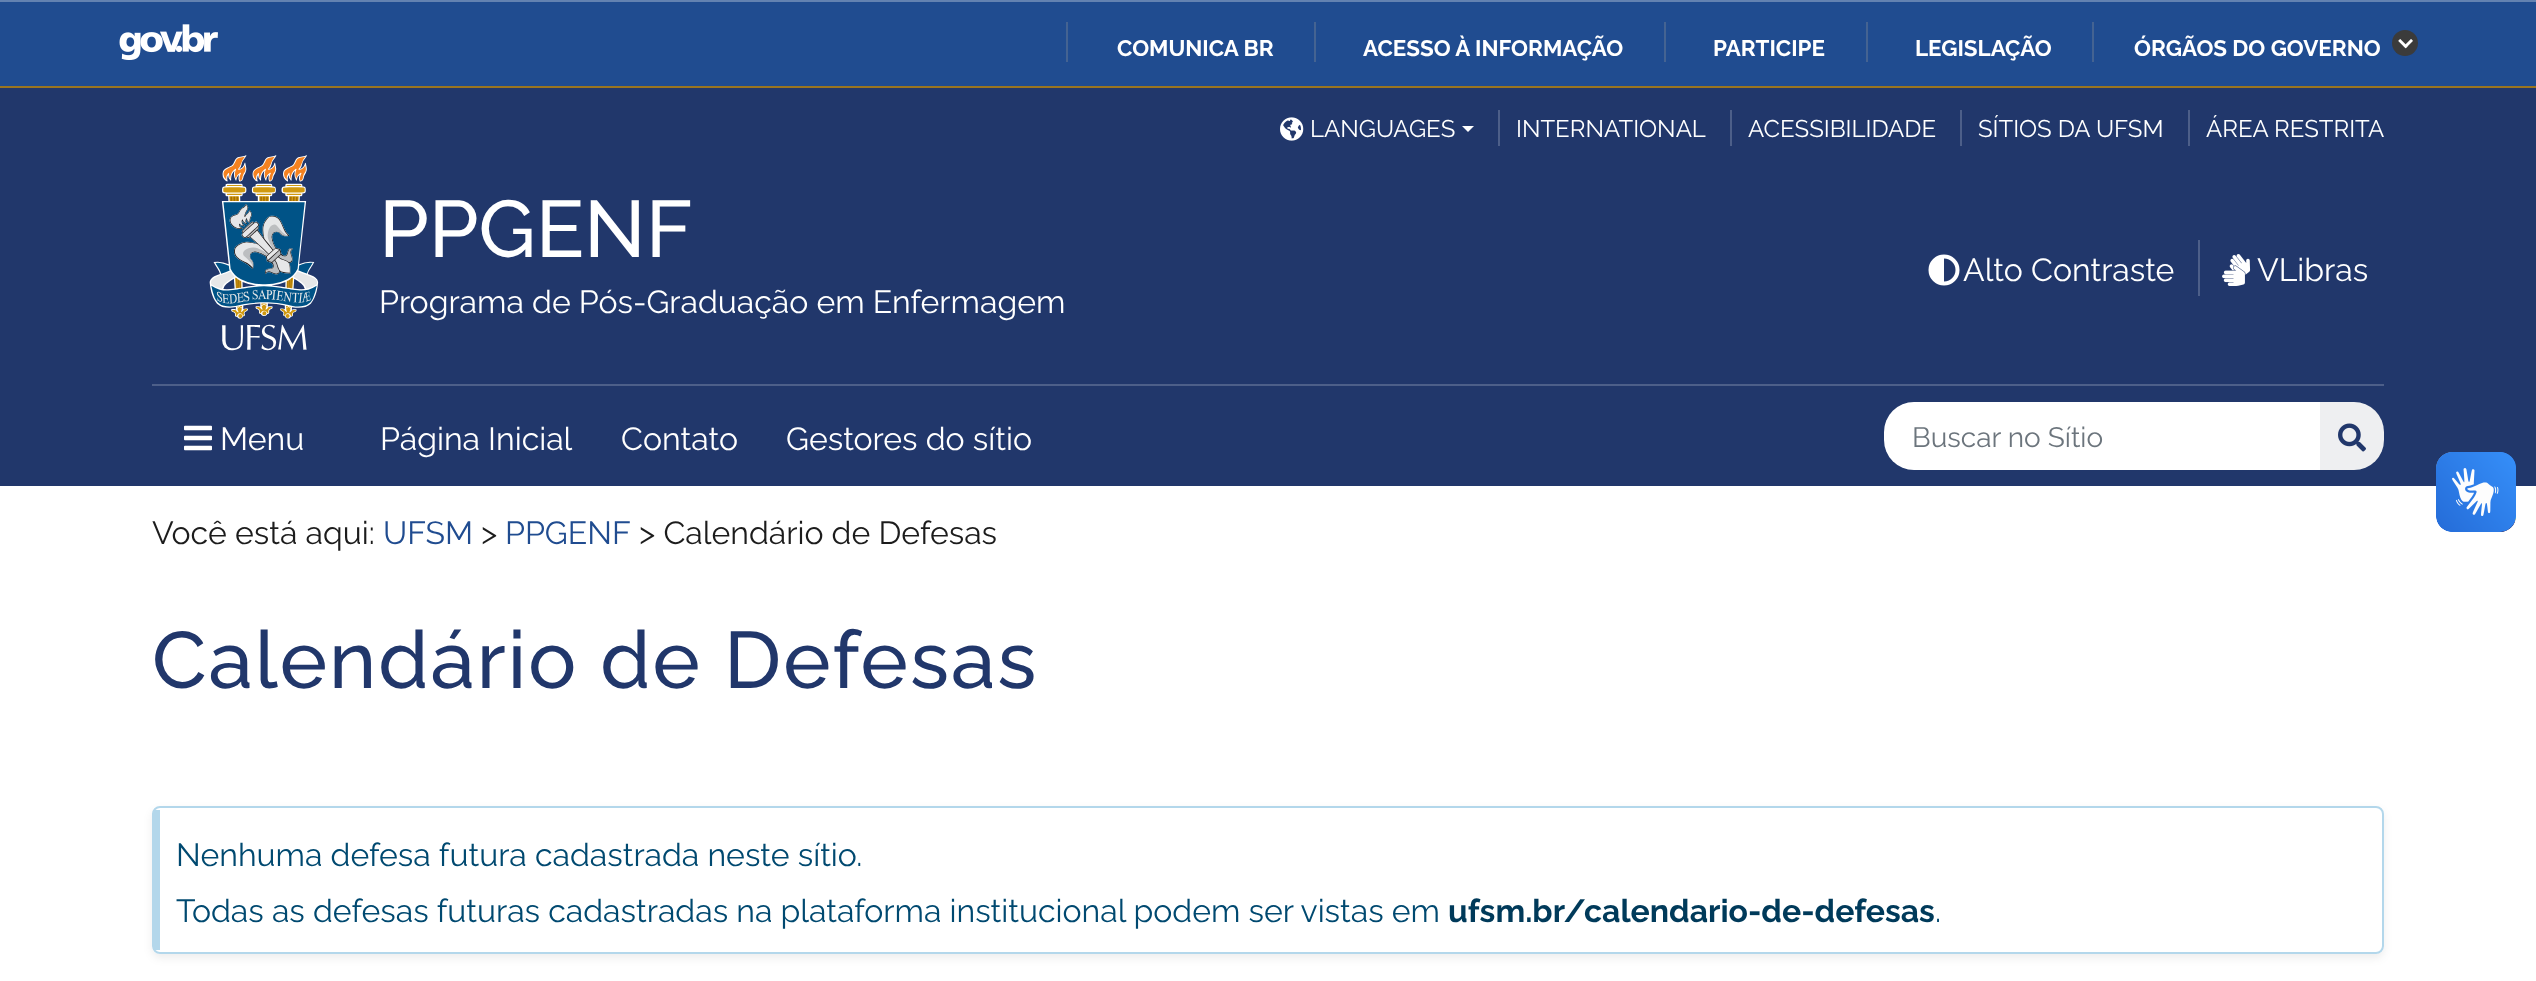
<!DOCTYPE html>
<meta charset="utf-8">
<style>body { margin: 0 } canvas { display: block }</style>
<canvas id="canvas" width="2536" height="981"></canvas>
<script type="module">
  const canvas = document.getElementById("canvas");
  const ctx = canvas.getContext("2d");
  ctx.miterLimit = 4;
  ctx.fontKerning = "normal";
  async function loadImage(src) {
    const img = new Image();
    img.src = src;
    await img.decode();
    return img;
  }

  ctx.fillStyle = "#ffffff";
  ctx.fillRect(0, 0, 2536, 981);
  ctx.fillStyle = "#204c90";
  ctx.fillRect(0, 2, 2536, 84);
  ctx.fillStyle = "#6382b1";
  ctx.fillRect(0, 0, 2536, 2);
  ctx.drawImage(await loadImage("img1.png"), 119, 24, 99, 36);
  ctx.fillStyle = "#446392";
  ctx.fillRect(1066, 22, 2, 40);
  ctx.font = "bold 22.4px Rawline";
  ctx.fillStyle = "#ffffff";
  ctx.fillText("COMUNICA BR", 1117, 56);
  ctx.fillStyle = "#446392";
  ctx.fillRect(1314, 22, 2, 40);
  ctx.fillStyle = "#ffffff";
  ctx.fillText("ACESSO À INFORMAÇÃO", 1363, 56);
  ctx.fillStyle = "#446392";
  ctx.fillRect(1664, 22, 2, 40);
  ctx.fillStyle = "#ffffff";
  ctx.fillText("PARTICIPE", 1713, 56);
  ctx.fillStyle = "#446392";
  ctx.fillRect(1866, 22, 2, 40);
  ctx.fillStyle = "#ffffff";
  ctx.fillText("LEGISLAÇÃO", 1915, 56);
  ctx.fillStyle = "#446392";
  ctx.fillRect(2092, 22, 2, 40);
  ctx.fillStyle = "#ffffff";
  ctx.fillText("ÓRGÃOS DO GOVERNO", 2134, 56);
  ctx.fillStyle = "#3b3b3b";
  ctx.beginPath();
  ctx.arc(2405, 43, 13, 0, Math.PI * 2);
  ctx.fill();
  ctx.drawImage(await loadImage("img2.png"), 2398, 39, 15, 10);
  ctx.fillStyle = "#21376b";
  ctx.fillRect(0, 88, 2536, 398);
  ctx.fillStyle = "#997520";
  ctx.fillRect(0, 86, 2536, 2);
  ctx.drawImage(await loadImage("img3.png"), 1280, 117, 24, 24);
  ctx.font = "24px Rawline";
  ctx.fillStyle = "#ffffff";
  ctx.fillText("LANGUAGES", 1310, 137);
  ctx.beginPath();
  ctx.moveTo(1462, 126);
  ctx.lineTo(1474, 126);
  ctx.lineTo(1468, 132);
  ctx.closePath();
  ctx.fill();
  ctx.fillStyle = "#4d5f89";
  ctx.fillRect(1498, 110, 2, 36);
  ctx.fillStyle = "#ffffff";
  ctx.fillText("INTERNATIONAL", 1516, 137);
  ctx.fillStyle = "#4d5f89";
  ctx.fillRect(1730, 110, 2, 36);
  ctx.fillStyle = "#ffffff";
  ctx.fillText("ACESSIBILIDADE", 1748, 137);
  ctx.fillStyle = "#4d5f89";
  ctx.fillRect(1960, 110, 2, 36);
  ctx.fillStyle = "#ffffff";
  ctx.fillText("SÍTIOS DA UFSM", 1978, 137);
  ctx.fillStyle = "#4d5f89";
  ctx.fillRect(2188, 110, 2, 36);
  ctx.fillStyle = "#ffffff";
  ctx.fillText("ÁREA RESTRITA", 2206, 137);
  ctx.fillStyle = "#4d5f89";
  ctx.fillRect(152, 384, 2232, 2);
  ctx.drawImage(await loadImage("img4.png"), 209, 155, 110, 196);
  ctx.font = "500 80px Rawline";
  ctx.fillStyle = "#ffffff";
  ctx.fillText("PPGENF", 379, 257);
  ctx.font = "32px Rawline";
  ctx.fillText("Programa de Pós-Graduação em Enfermagem", 379, 313);
  ctx.drawImage(await loadImage("img5.png"), 1928, 254, 32, 32);
  ctx.fillText("Alto Contraste", 1963, 281);
  ctx.fillStyle = "#4d5f89";
  ctx.fillRect(2198, 240, 2, 56);
  ctx.drawImage(await loadImage("img6.png"), 2222, 254, 29, 32);
  ctx.fillStyle = "#ffffff";
  ctx.fillText("VLibras", 2257, 281);
  ctx.drawImage(await loadImage("img7.png"), 184, 425, 28, 26);
  ctx.fillText("Menu", 220, 450);
  ctx.fillText("Página Inicial", 380, 450);
  ctx.fillText("Contato", 621, 450);
  ctx.fillText("Gestores do sítio", 786, 450);
  ctx.save();
  ctx.beginPath();
  ctx.roundRect(1884, 402, 500, 68, 30);
  ctx.clip();
  ctx.beginPath();
  ctx.roundRect(1882, 402, 440, 68, [8, 0, 0, 8]);
  ctx.fill();
  ctx.restore();
  ctx.font = "28px Rawline";
  ctx.fillStyle = "#6c757d";
  ctx.fillText("Buscar no Sítio", 1912, 447);
  ctx.fillStyle = "#eeeff1";
  ctx.beginPath();
  ctx.roundRect(2320, 402, 64, 68, [0, 30, 30, 0]);
  ctx.fill();
  ctx.drawImage(await loadImage("img8.png"), 2338, 423, 28, 29);
  ctx.drawImage(await loadImage("img9.png"), 2436, 452, 80, 80);
  ctx.drawImage(await loadImage("img10.png"), 2436, 452, 80, 80);
  ctx.font = "32px Rawline";
  ctx.fillStyle = "#1c1c1c";
  ctx.fillText("Você está aqui:", 152, 544);
  ctx.fillStyle = "#204c90";
  ctx.fillText("UFSM", 383, 544);
  ctx.fillStyle = "#1c1c1c";
  ctx.fillText(">", 481, 544);
  ctx.fillStyle = "#204c90";
  ctx.fillText("PPGENF", 505, 544);
  ctx.fillStyle = "#1c1c1c";
  ctx.fillText("> Calendário de Defesas", 639, 544);
  ctx.letterSpacing = "2px";
  ctx.font = "500 80px Rawline";
  ctx.fillStyle = "#21376b";
  ctx.fillText("Calendário de Defesas", 152, 688);
  ctx.save();
  ctx.beginPath();
  ctx.moveTo(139, 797);
  ctx.lineTo(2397, 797);
  ctx.lineTo(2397, 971);
  ctx.lineTo(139, 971);
  ctx.closePath();
  ctx.moveTo(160, 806);
  ctx.lineTo(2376, 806);
  ctx.bezierCurveTo(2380.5, 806, 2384, 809.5, 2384, 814);
  ctx.lineTo(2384, 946);
  ctx.bezierCurveTo(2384, 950.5, 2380.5, 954, 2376, 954);
  ctx.lineTo(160, 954);
  ctx.bezierCurveTo(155.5, 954, 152, 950.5, 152, 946);
  ctx.lineTo(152, 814);
  ctx.bezierCurveTo(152, 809.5, 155.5, 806, 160, 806);
  ctx.closePath();
  ctx.clip("evenodd");
  ctx.fillStyle = "rgba(0, 0, 0, 0.07)";
  ctx.filter = "blur(4px)";
  ctx.beginPath();
  ctx.roundRect(152, 810, 2232, 148, 8);
  ctx.fill();
  ctx.filter = "none";
  ctx.restore();
  ctx.beginPath();
  ctx.roundRect(153, 807, 2230, 146, 7);
  ctx.strokeStyle = "#b3d7eb";
  ctx.lineWidth = 2;
  ctx.stroke();
  ctx.fillStyle = "#b3d7eb";
  ctx.fillRect(154, 810, 6, 140);
  ctx.letterSpacing = "0px";
  ctx.font = "32px Rawline";
  ctx.fillStyle = "#004970";
  ctx.fillText("Nenhuma defesa futura cadastrada neste sítio.", 176, 866);
  ctx.fillText("Todas as defesas futuras cadastradas na plataforma institucional podem ser vistas em", 176, 922);
  ctx.font = "bold 32px Rawline";
  ctx.fillStyle = "#003a5a";
  ctx.fillText("ufsm.br/calendario-de-defesas", 1448, 922);
  ctx.font = "32px Rawline";
  ctx.fillStyle = "#004970";
  ctx.fillText(".", 1935, 922);
</script>
